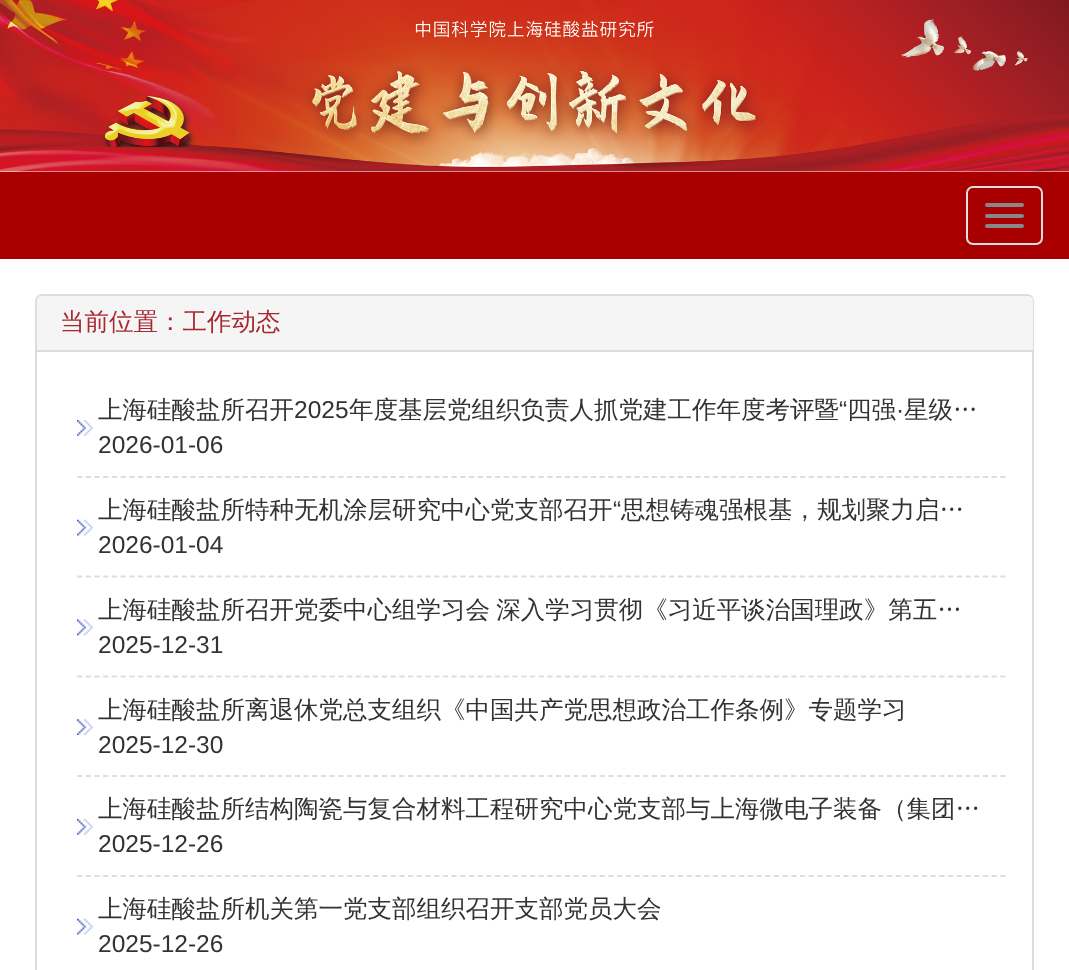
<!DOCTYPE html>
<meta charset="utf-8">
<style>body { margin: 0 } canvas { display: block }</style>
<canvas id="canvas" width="1069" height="970"></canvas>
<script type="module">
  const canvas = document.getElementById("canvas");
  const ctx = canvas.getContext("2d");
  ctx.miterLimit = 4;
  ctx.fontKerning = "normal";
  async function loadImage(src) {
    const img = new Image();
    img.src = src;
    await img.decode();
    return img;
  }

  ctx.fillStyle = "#ffffff";
  ctx.fillRect(0, 0, 1069, 970);
  ctx.drawImage(await loadImage("img1.png"), 0, 0, 1069, 172);
  ctx.fillStyle = "#a80000";
  ctx.fillRect(0, 172, 1069, 87);
  ctx.beginPath();
  ctx.roundRect(967, 187, 75, 57, 6);
  ctx.strokeStyle = "#dddddd";
  ctx.lineWidth = 2;
  ctx.stroke();
  ctx.fillStyle = "#888888";
  ctx.beginPath();
  ctx.roundRect(985, 203, 39, 4, 2);
  ctx.fill();
  ctx.beginPath();
  ctx.roundRect(985, 214, 39, 4, 2);
  ctx.fill();
  ctx.beginPath();
  ctx.roundRect(985, 224, 39, 4, 2);
  ctx.fill();
  ctx.beginPath();
  ctx.roundRect(36, 295, 997, 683, 6);
  ctx.stroke();
  ctx.fillStyle = "#f5f5f5";
  ctx.beginPath();
  ctx.roundRect(37, 296, 996, 56, [5, 5, 0, 0]);
  ctx.fill();
  ctx.fillStyle = "#dddddd";
  ctx.fillRect(37, 350, 996, 2);
  ctx.font = "500 24.5px WenQuanYi Zen Hei";
  ctx.fillStyle = "#a7282f";
  ctx.fillText("当前位置：工作动态", 60, 330);
  ctx.drawImage(await loadImage("img2.png"), 77, 420, 16, 16);
  ctx.beginPath();
  ctx.moveTo(77, 477);
  ctx.lineTo(1006, 477);
  ctx.strokeStyle = "#dedede";
  ctx.lineWidth = 1.8;
  ctx.setLineDash([5.25, 3.46]);
  ctx.stroke();
  ctx.fillStyle = "#333333";
  ctx.fillText("上海硅酸盐所召开", 98, 418);
  ctx.font = "24.5px Liberation Sans";
  ctx.fillText("2025", 294, 418);
  ctx.font = "500 24.5px WenQuanYi Zen Hei";
  ctx.fillText("年度基层党组织负责人抓党建工作年度考评暨", 349, 418);
  ctx.font = "24.5px Liberation Sans";
  ctx.fillText("“", 839, 418);
  ctx.font = "500 24.5px WenQuanYi Zen Hei";
  ctx.fillText("四强", 847, 418);
  ctx.fillText("星级…", 904, 418);
  ctx.font = "24.5px Liberation Sans";
  ctx.fillText("·", 896, 418);
  ctx.fillText("2026-01-06", 98, 453);
  ctx.drawImage(await loadImage("img3.png"), 77, 519, 16, 17);
  ctx.beginPath();
  ctx.moveTo(77, 576.5);
  ctx.lineTo(1006, 576.5);
  ctx.stroke();
  ctx.font = "500 24.5px WenQuanYi Zen Hei";
  ctx.fillText("上海硅酸盐所特种无机涂层研究中心党支部召开", 98, 518);
  ctx.font = "24.5px Liberation Sans";
  ctx.fillText("“", 613, 518);
  ctx.font = "500 24.5px WenQuanYi Zen Hei";
  ctx.fillText("思想铸魂强根基，规划聚力启…", 621, 518);
  ctx.font = "24.5px Liberation Sans";
  ctx.fillText("2026-01-04", 98, 553);
  ctx.drawImage(await loadImage("img4.png"), 77, 619, 16, 17);
  ctx.beginPath();
  ctx.moveTo(77, 676.5);
  ctx.lineTo(1006, 676.5);
  ctx.stroke();
  ctx.wordSpacing = "-1px";
  ctx.font = "500 24.5px WenQuanYi Zen Hei";
  ctx.fillText("上海硅酸盐所召开党委中心组学习会 深入学习贯彻《习近平谈治国理政》第五…", 98, 618);
  ctx.wordSpacing = "0px";
  ctx.font = "24.5px Liberation Sans";
  ctx.fillText("2025-12-31", 98, 653);
  ctx.drawImage(await loadImage("img5.png"), 77, 719, 16, 16);
  ctx.beginPath();
  ctx.moveTo(77, 776);
  ctx.lineTo(1006, 776);
  ctx.stroke();
  ctx.font = "500 24.5px WenQuanYi Zen Hei";
  ctx.fillText("上海硅酸盐所离退休党总支组织《中国共产党思想政治工作条例》专题学习", 98, 718);
  ctx.font = "24.5px Liberation Sans";
  ctx.fillText("2025-12-30", 98, 753);
  ctx.drawImage(await loadImage("img2.png"), 77, 819, 16, 16);
  ctx.beginPath();
  ctx.moveTo(77, 876);
  ctx.lineTo(1006, 876);
  ctx.stroke();
  ctx.font = "500 24.5px WenQuanYi Zen Hei";
  ctx.fillText("上海硅酸盐所结构陶瓷与复合材料工程研究中心党支部与上海微电子装备（集团…", 98, 817);
  ctx.font = "24.5px Liberation Sans";
  ctx.fillText("2025-12-26", 98, 852);
  ctx.drawImage(await loadImage("img3.png"), 77, 918, 16, 17);
  ctx.font = "500 24.5px WenQuanYi Zen Hei";
  ctx.fillText("上海硅酸盐所机关第一党支部组织召开支部党员大会", 98, 917);
  ctx.font = "24.5px Liberation Sans";
  ctx.fillText("2025-12-26", 98, 952);
</script>
